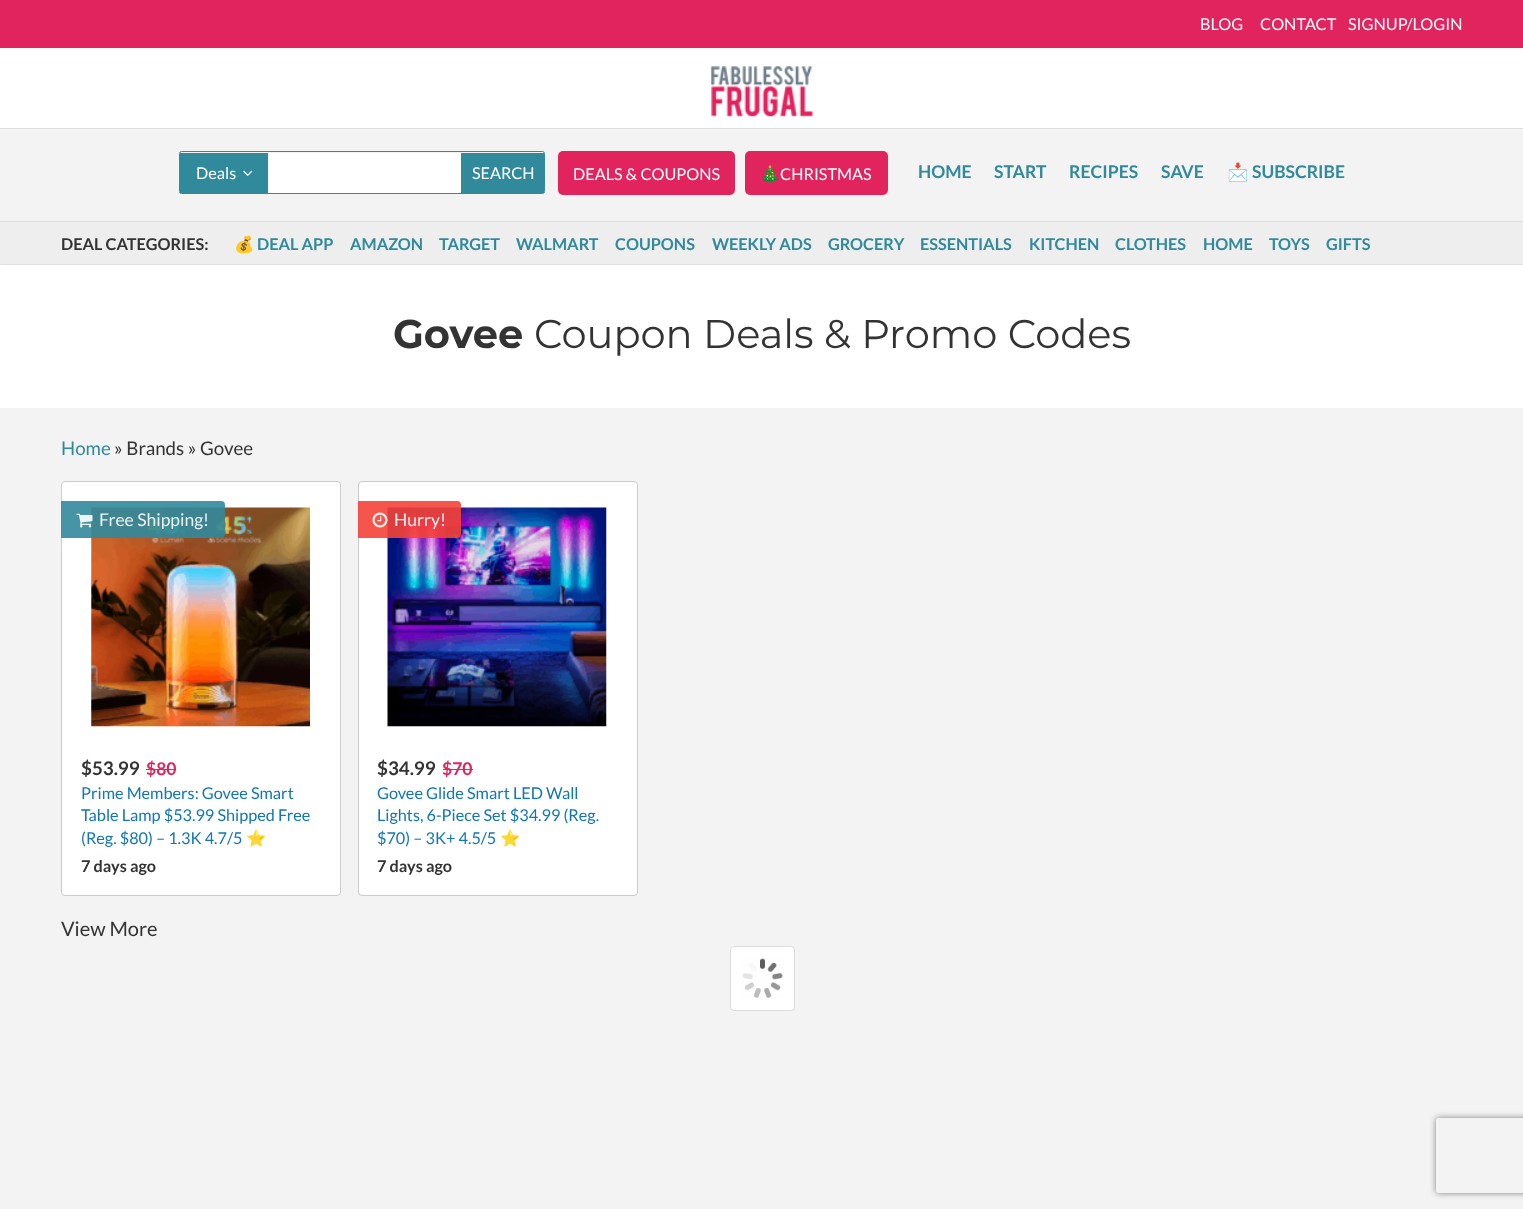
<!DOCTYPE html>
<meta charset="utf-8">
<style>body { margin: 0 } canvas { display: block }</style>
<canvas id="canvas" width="1523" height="1209"></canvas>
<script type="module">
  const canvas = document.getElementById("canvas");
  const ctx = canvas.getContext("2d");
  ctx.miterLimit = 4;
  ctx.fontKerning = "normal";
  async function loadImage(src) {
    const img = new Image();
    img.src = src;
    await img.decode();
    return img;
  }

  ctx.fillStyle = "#f3f3f3";
  ctx.fillRect(0, 0, 1523, 1209);
  ctx.fillStyle = "#e1245e";
  ctx.fillRect(0, 0, 1523, 48);
  ctx.font = "16.25px Lato";
  ctx.fillStyle = "#ffffff";
  ctx.fillText("BLOG", 1200, 30);
  ctx.fillText("CONTACT", 1260, 30);
  ctx.fillText("SIGNUP/LOGIN", 1348, 30);
  ctx.fillRect(0, 48, 1523, 80);
  ctx.fillStyle = "#dddddd";
  ctx.fillRect(0, 128, 1523, 1);
  ctx.drawImage(await loadImage("img1.png"), 711, 66, 102, 51);
  ctx.beginPath();
  ctx.roundRect(179.5, 151.5, 365, 42, 2);
  ctx.strokeStyle = "#318a9c";
  ctx.stroke();
  ctx.fillStyle = "#318a9c";
  ctx.fillRect(180, 153, 88, 40);
  ctx.fillStyle = "#ffffff";
  ctx.fillText("Deals", 196, 179);
  ctx.drawImage(await loadImage("img2.png"), 243, 170, 10, 6);
  ctx.fillRect(268, 153, 193, 40);
  ctx.fillStyle = "#318a9c";
  ctx.fillRect(461, 153, 83, 40);
  ctx.fillStyle = "#ffffff";
  ctx.fillText("SEARCH", 472, 179);
  ctx.fillStyle = "#e1245e";
  ctx.beginPath();
  ctx.roundRect(558, 151, 177, 44, 5);
  ctx.fill();
  ctx.fillStyle = "#ffffff";
  ctx.fillText("DEALS & COUPONS", 573, 180);
  ctx.fillStyle = "#e1245e";
  ctx.beginPath();
  ctx.roundRect(745, 151, 143, 44, 5);
  ctx.fill();
  ctx.font = "16.25px Noto Color Emoji";
  ctx.fillStyle = "#ffffff";
  ctx.fillText("🎄", 760, 180);
  ctx.font = "16.25px Lato";
  ctx.fillText("CHRISTMAS", 780, 180);
  ctx.font = "bold 17.5px Lato";
  ctx.fillStyle = "#318a9c";
  ctx.fillText("HOME", 918, 178);
  ctx.fillText("START", 994, 178);
  ctx.fillText("RECIPES", 1069, 178);
  ctx.fillText("SAVE", 1161, 178);
  ctx.font = "bold 17.5px Noto Color Emoji";
  ctx.fillText("📩", 1227, 178);
  ctx.font = "bold 17.5px Lato";
  ctx.fillText("SUBSCRIBE", 1252, 178);
  ctx.fillStyle = "#dddddd";
  ctx.filter = "blur(1px)";
  ctx.beginPath();
  ctx.rect(0, 224, 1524, 42);
  ctx.fill();
  ctx.filter = "none";
  ctx.fillStyle = "#eeeeee";
  ctx.fillRect(0, 222, 1523, 42);
  ctx.fillStyle = "#dddddd";
  ctx.fillRect(0, 221, 1523, 1);
  ctx.font = "bold 16.25px Lato";
  ctx.fillStyle = "#333333";
  ctx.fillText("DEAL CATEGORIES:", 61, 250);
  ctx.font = "bold 16.25px Noto Color Emoji";
  ctx.fillStyle = "#318a9c";
  ctx.fillText("💰", 234, 250);
  ctx.font = "bold 16.25px Lato";
  ctx.fillText("DEAL APP", 257, 250);
  ctx.fillText("AMAZON", 350, 250);
  ctx.fillText("TARGET", 439, 250);
  ctx.fillText("WALMART", 516, 250);
  ctx.fillText("COUPONS", 615, 250);
  ctx.fillText("WEEKLY ADS", 712, 250);
  ctx.fillText("GROCERY", 828, 250);
  ctx.fillText("ESSENTIALS", 920, 250);
  ctx.fillText("KITCHEN", 1029, 250);
  ctx.fillText("CLOTHES", 1115, 250);
  ctx.fillText("HOME", 1203, 250);
  ctx.fillText("TOYS", 1269, 250);
  ctx.fillText("GIFTS", 1326, 250);
  ctx.fillStyle = "#ffffff";
  ctx.fillRect(0, 265, 1523, 143);
  ctx.font = "bold 40px Montserrat";
  ctx.fillStyle = "#333333";
  ctx.fillText("Govee", 393, 348);
  ctx.font = "40px Montserrat";
  ctx.fillText("Coupon Deals & Promo Codes", 534, 348);
  ctx.font = "18.75px Lato";
  ctx.fillStyle = "#318a9c";
  ctx.fillText("Home", 61, 455);
  ctx.fillStyle = "#333333";
  ctx.fillText("» Brands » Govee", 114, 455);
  ctx.fillStyle = "#ffffff";
  ctx.beginPath();
  ctx.roundRect(61.5, 481.5, 279, 414, 3.5);
  ctx.fill();
  ctx.strokeStyle = "#cccccc";
  ctx.stroke();
  ctx.drawImage(await loadImage("img3.png"), 91, 507, 219, 220);
  ctx.fillStyle = "rgba(49, 138, 156, 0.9)";
  ctx.beginPath();
  ctx.roundRect(61, 501, 164, 37, [0, 4, 4, 0]);
  ctx.fill();
  ctx.drawImage(await loadImage("img4.png"), 76, 513, 17, 15);
  ctx.font = "17.5px Lato";
  ctx.fillStyle = "#ecf3f4";
  ctx.fillText("Free Shipping!", 99, 526);
  ctx.font = "bold 18.75px Lato";
  ctx.fillStyle = "#333333";
  ctx.fillText("$53.99", 81, 775);
  ctx.font = "bold 17.5px Lato";
  ctx.fillStyle = "#e1245e";
  ctx.fillText("$80", 146, 775);
  ctx.fillRect(146, 769, 30, 1);
  ctx.font = "16.25px Lato";
  ctx.fillStyle = "#1076b6";
  ctx.fillText("Prime Members: Govee Smart", 81, 799);
  ctx.fillText("Table Lamp $53.99 Shipped Free", 81, 821);
  ctx.fillText("(Reg. $80) – 1.3K 4.7/5", 81, 844);
  ctx.font = "16.25px Noto Color Emoji";
  ctx.fillText("⭐️", 246, 844);
  ctx.font = "bold 16.25px Lato";
  ctx.fillStyle = "#333333";
  ctx.fillText("7 days ago", 81, 872);
  ctx.fillStyle = "#ffffff";
  ctx.beginPath();
  ctx.roundRect(358.5, 481.5, 279, 414, 3.5);
  ctx.fill();
  ctx.stroke();
  ctx.drawImage(await loadImage("img5.png"), 387, 507, 220, 220);
  ctx.fillStyle = "rgba(244, 67, 54, 0.9)";
  ctx.beginPath();
  ctx.roundRect(358, 501, 103, 37, [0, 4, 4, 0]);
  ctx.fill();
  ctx.drawImage(await loadImage("img6.png"), 372, 512, 16, 16);
  ctx.font = "17.5px Lato";
  ctx.fillStyle = "#fdecec";
  ctx.fillText("Hurry!", 394, 526);
  ctx.font = "bold 18.75px Lato";
  ctx.fillStyle = "#333333";
  ctx.fillText("$34.99", 377, 775);
  ctx.font = "bold 17.5px Lato";
  ctx.fillStyle = "#e1245e";
  ctx.fillText("$70", 442, 775);
  ctx.fillRect(443, 769, 30, 1);
  ctx.font = "16.25px Lato";
  ctx.fillStyle = "#1076b6";
  ctx.fillText("Govee Glide Smart LED Wall", 377, 799);
  ctx.fillText("Lights, 6-Piece Set $34.99 (Reg.", 377, 821);
  ctx.fillText("$70) – 3K+ 4.5/5", 377, 844);
  ctx.font = "16.25px Noto Color Emoji";
  ctx.fillText("⭐️", 500, 844);
  ctx.font = "bold 16.25px Lato";
  ctx.fillStyle = "#333333";
  ctx.fillText("7 days ago", 377, 872);
  ctx.font = "20px Lato";
  ctx.fillText("View More", 61, 936);
  ctx.fillStyle = "#ffffff";
  ctx.beginPath();
  ctx.roundRect(730.5, 946.5, 64, 64, 3.5);
  ctx.fill();
  ctx.strokeStyle = "#dddddd";
  ctx.stroke();
  ctx.drawImage(await loadImage("img7.png"), 742, 958, 41, 40);
  ctx.save();
  ctx.beginPath();
  ctx.moveTo(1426, 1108);
  ctx.lineTo(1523, 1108);
  ctx.lineTo(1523, 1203);
  ctx.lineTo(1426, 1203);
  ctx.closePath();
  ctx.moveTo(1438.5, 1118);
  ctx.lineTo(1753.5, 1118);
  ctx.bezierCurveTo(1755, 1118, 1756, 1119, 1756, 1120.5);
  ctx.lineTo(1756, 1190.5);
  ctx.bezierCurveTo(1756, 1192, 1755, 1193, 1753.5, 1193);
  ctx.lineTo(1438.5, 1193);
  ctx.bezierCurveTo(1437, 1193, 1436, 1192, 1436, 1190.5);
  ctx.lineTo(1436, 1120.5);
  ctx.bezierCurveTo(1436, 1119, 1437, 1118, 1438.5, 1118);
  ctx.closePath();
  ctx.clip("evenodd");
  ctx.fillStyle = "#808080";
  ctx.filter = "blur(3px)";
  ctx.beginPath();
  ctx.roundRect(1436, 1118, 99, 75, 2.5);
  ctx.fill();
  ctx.filter = "none";
  ctx.restore();
</script>
